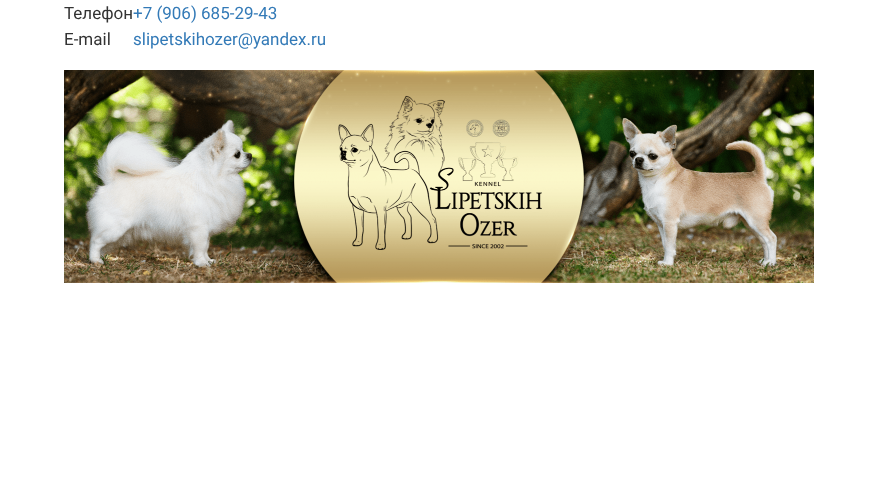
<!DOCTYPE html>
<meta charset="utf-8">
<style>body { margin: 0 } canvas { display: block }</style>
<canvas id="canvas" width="877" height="503"></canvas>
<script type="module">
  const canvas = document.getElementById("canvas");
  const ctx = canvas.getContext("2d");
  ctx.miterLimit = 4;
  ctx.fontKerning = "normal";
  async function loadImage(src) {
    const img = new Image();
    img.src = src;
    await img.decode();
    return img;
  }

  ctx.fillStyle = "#ffffff";
  ctx.fillRect(0, 0, 877, 503);
  ctx.font = "17px Roboto";
  ctx.fillStyle = "#333333";
  ctx.fillText("Телефон", 64, 19);
  ctx.fillStyle = "#337ab7";
  ctx.fillText("+7 (906) 685-29-43", 133, 19);
  ctx.fillStyle = "#333333";
  ctx.fillText("E-mail", 64, 45);
  ctx.fillStyle = "#337ab7";
  ctx.fillText("slipetskihozer@yandex.ru", 133, 45);
  ctx.drawImage(await loadImage("img1.png"), 64, 70, 750, 213);
</script>
